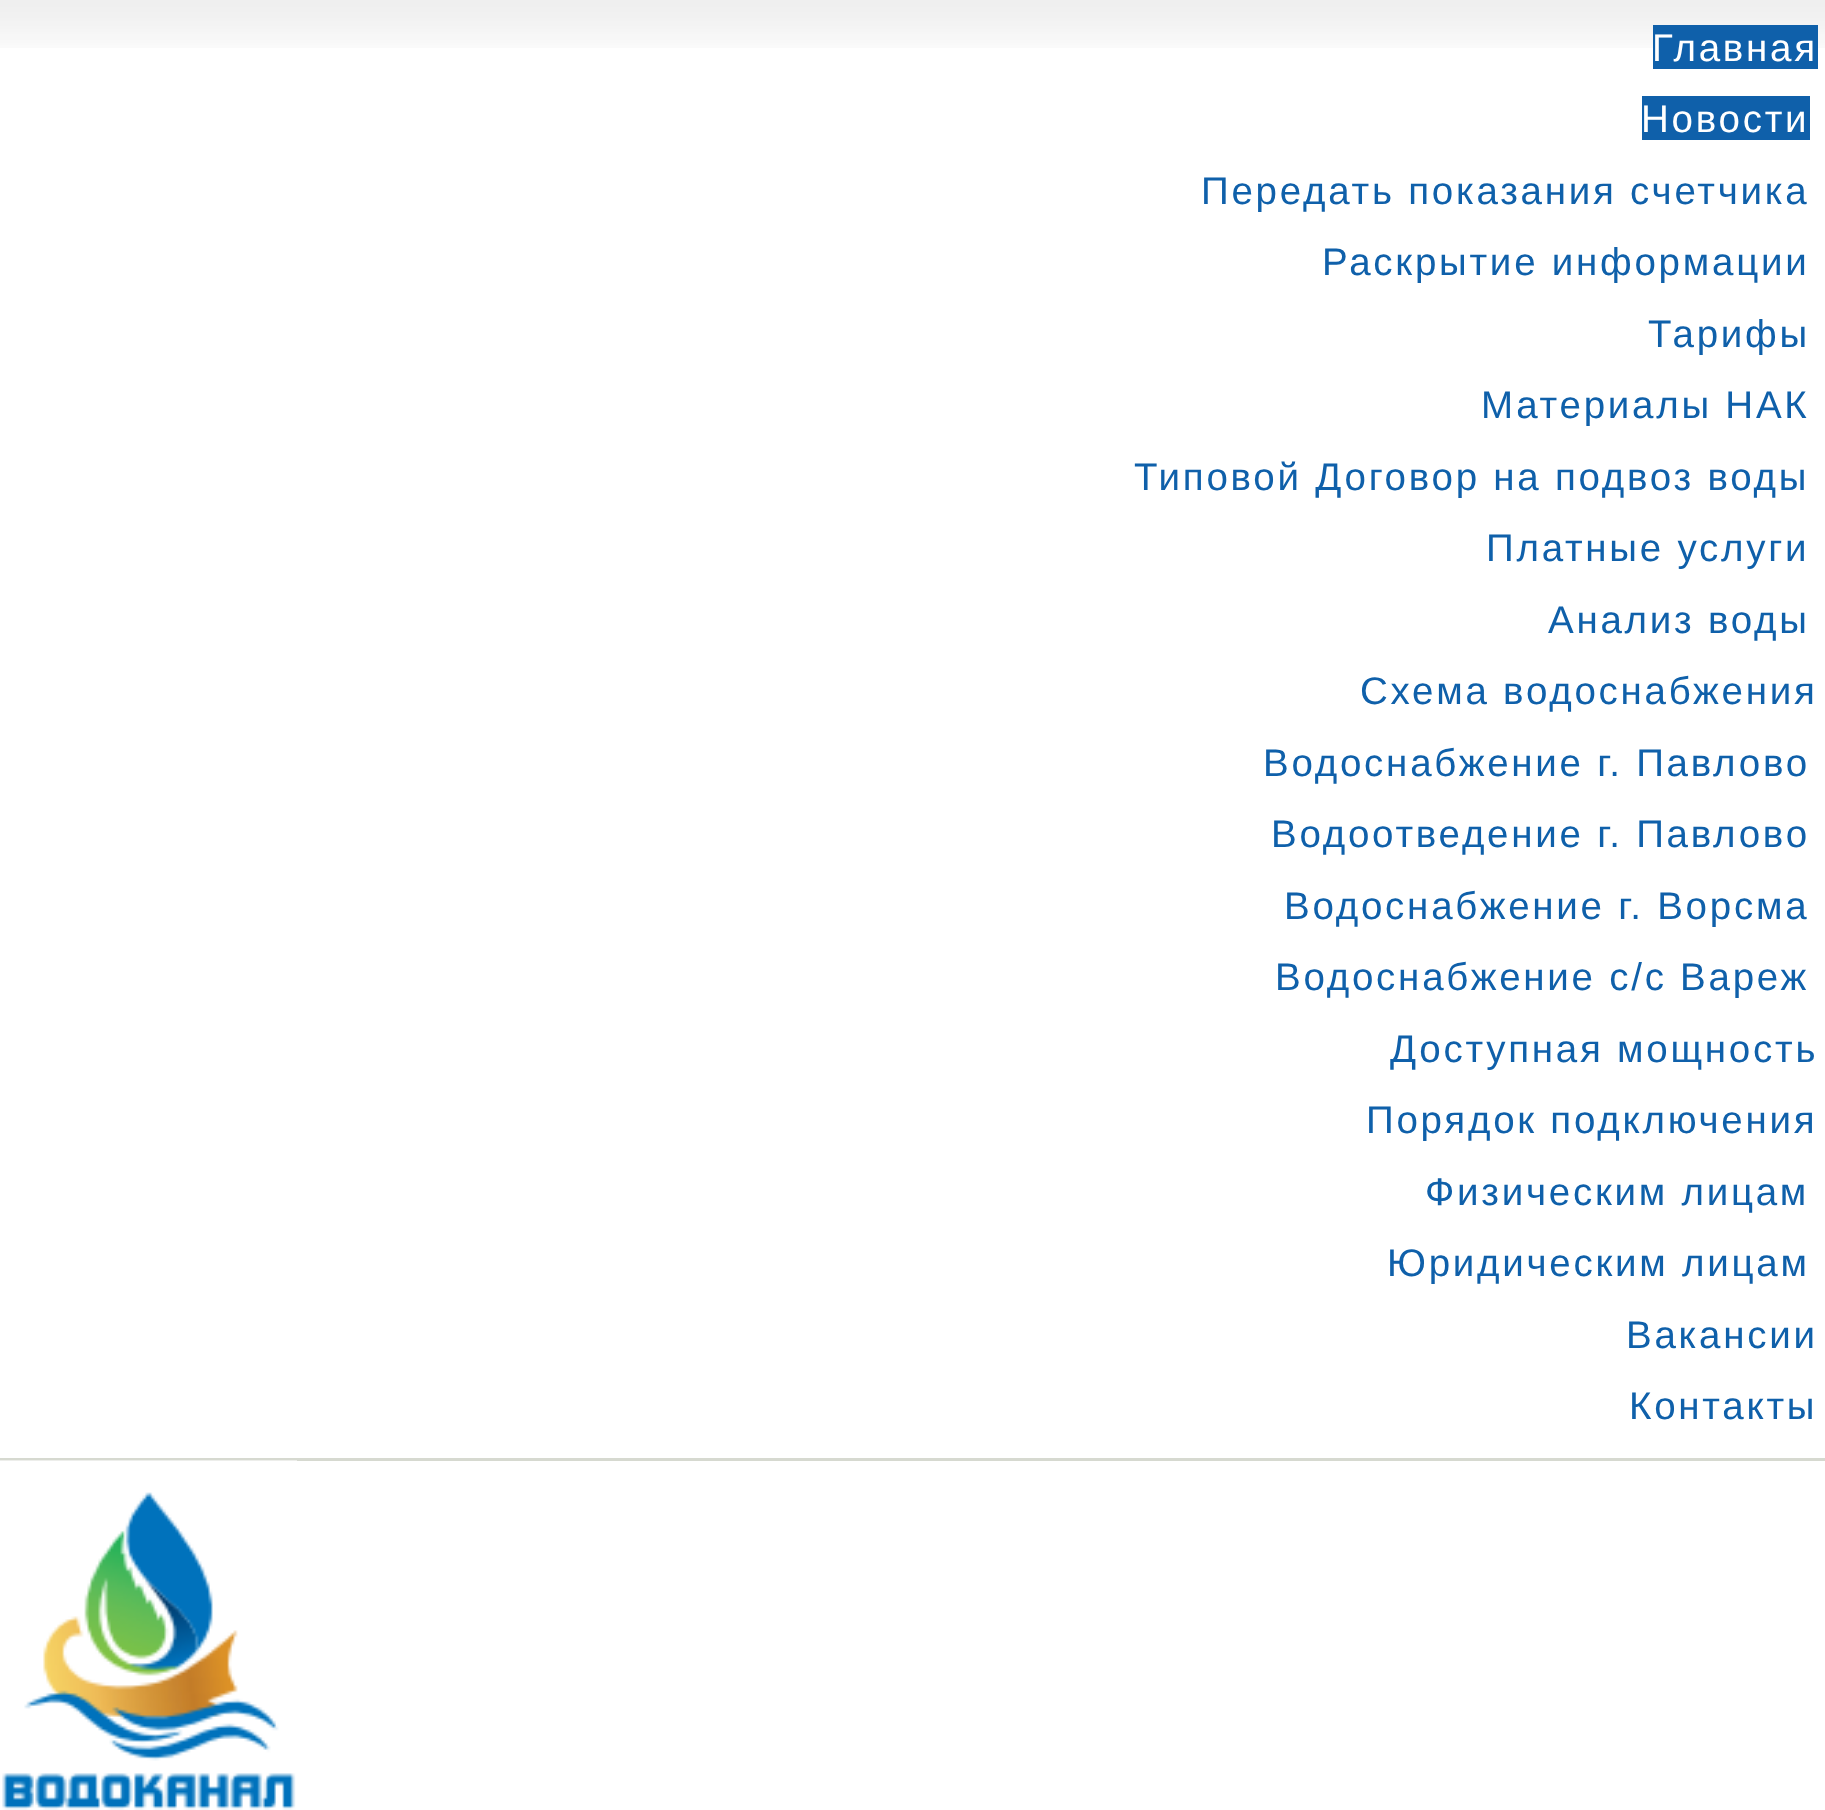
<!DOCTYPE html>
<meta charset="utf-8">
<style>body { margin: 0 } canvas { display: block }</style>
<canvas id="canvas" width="1825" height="1810"></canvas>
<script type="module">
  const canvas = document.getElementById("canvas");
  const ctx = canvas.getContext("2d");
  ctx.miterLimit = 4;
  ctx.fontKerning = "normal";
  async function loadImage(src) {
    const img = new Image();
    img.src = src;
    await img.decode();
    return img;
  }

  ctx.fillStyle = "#ffffff";
  ctx.fillRect(0, 0, 1825, 1810);
  ctx.drawImage(await loadImage("img1.png"), 0, 0, 1825, 48);
  ctx.fillStyle = "#d6d9d0";
  ctx.fillRect(0, 1458, 1825, 3);
  ctx.fillStyle = "#0f60aa";
  ctx.fillRect(1653, 25, 165, 44);
  ctx.letterSpacing = "2.75px";
  ctx.font = "38.5px Liberation Sans";
  ctx.fillStyle = "#ffffff";
  ctx.fillText("Главная", 1652, 61);
  ctx.fillStyle = "#0f60aa";
  ctx.fillRect(1642, 96, 168, 44);
  ctx.fillStyle = "#ffffff";
  ctx.fillText("Новости", 1641, 132);
  ctx.fillStyle = "#0f60aa";
  ctx.fillText("Передать показания счетчика", 1201, 204);
  ctx.fillText("Раскрытие информации", 1322, 275);
  ctx.fillText("Тарифы", 1648, 347);
  ctx.fillText("Материалы НАК", 1481, 418);
  ctx.fillText("Типовой Договор на подвоз воды", 1134, 490);
  ctx.fillText("Платные услуги", 1486, 561);
  ctx.fillText("Анализ воды", 1548, 633);
  ctx.fillText("Схема водоснабжения", 1360, 704);
  ctx.fillText("Водоснабжение г. Павлово", 1263, 776);
  ctx.fillText("Водоотведение г. Павлово", 1271, 847);
  ctx.fillText("Водоснабжение г. Ворсма", 1284, 919);
  ctx.fillText("Водоснабжение с/с Вареж", 1275, 990);
  ctx.fillText("Доступная мощность", 1390, 1062);
  ctx.fillText("Порядок подключения", 1366, 1133);
  ctx.fillText("Физическим лицам", 1425, 1205);
  ctx.fillText("Юридическим лицам", 1387, 1276);
  ctx.fillText("Вакансии", 1626, 1348);
  ctx.fillText("Контакты", 1629, 1419);
  ctx.drawImage(await loadImage("img2.png"), 0, 1460, 297, 350);
</script>
